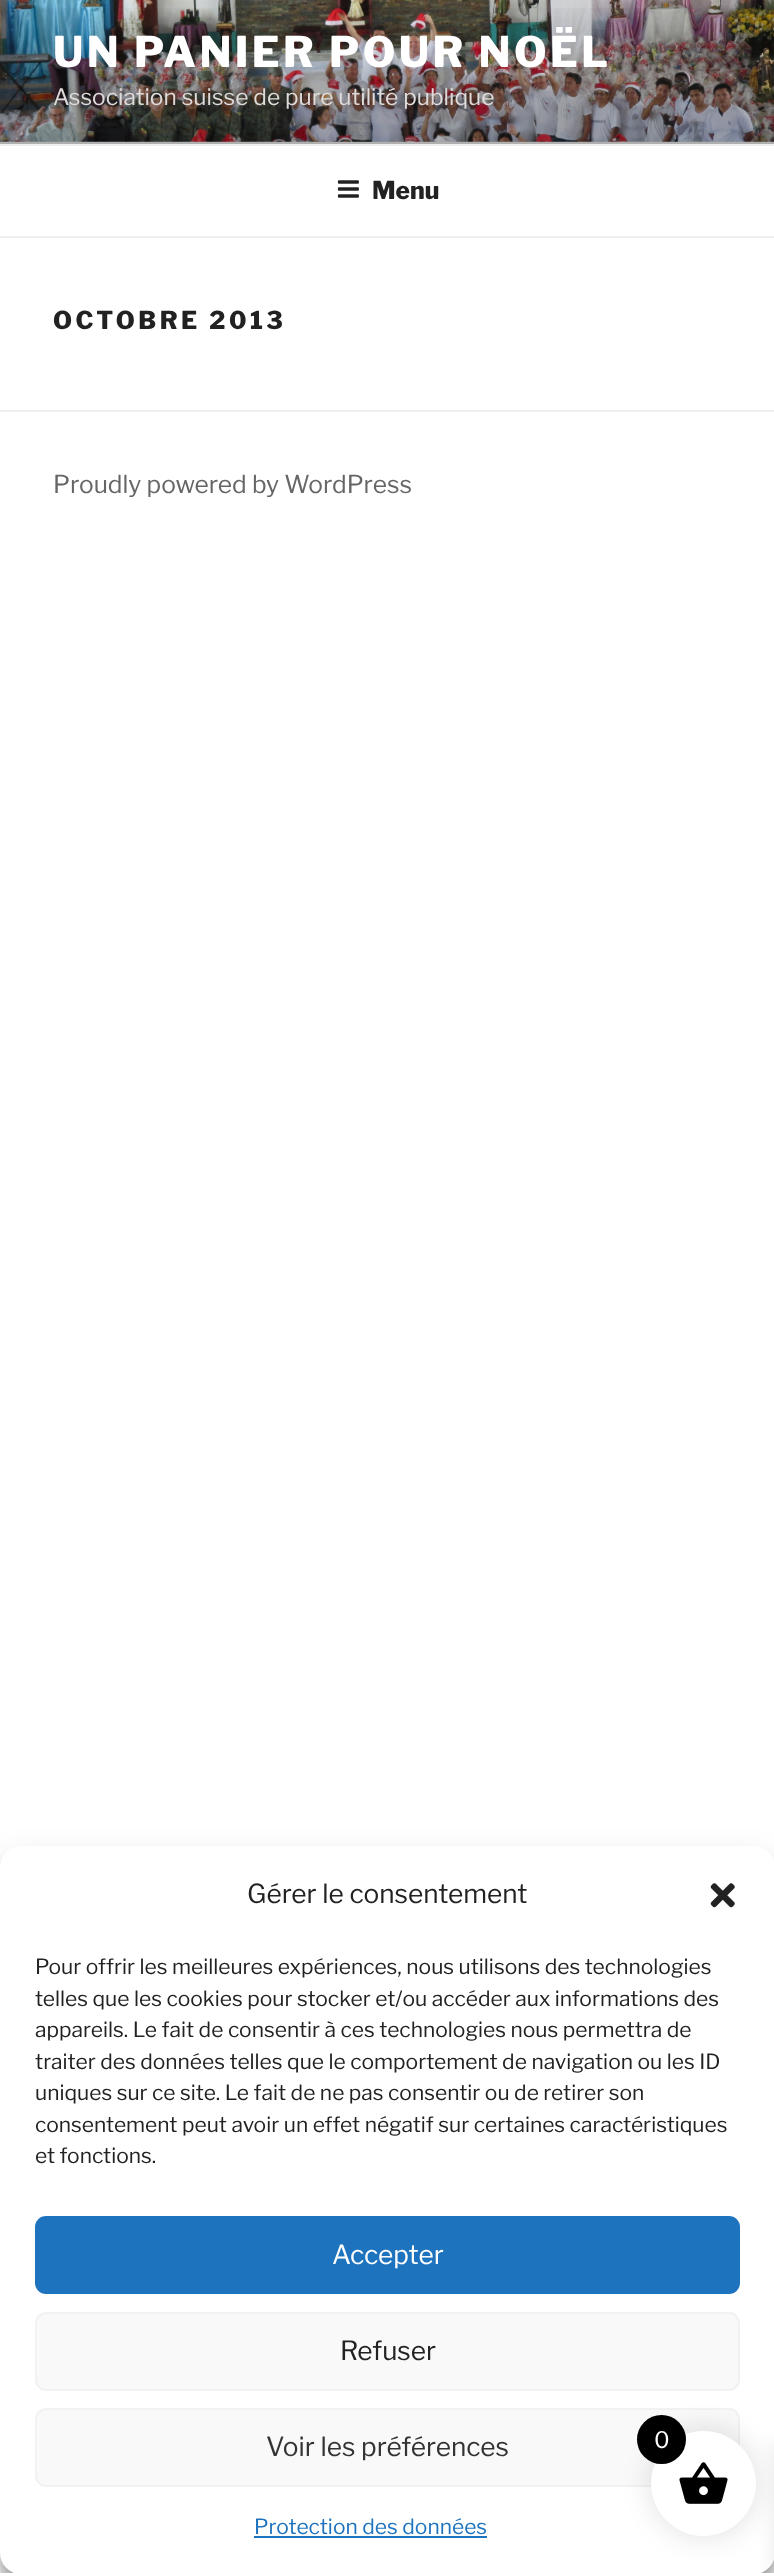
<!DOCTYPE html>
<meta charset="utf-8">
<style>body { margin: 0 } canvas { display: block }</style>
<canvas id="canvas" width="774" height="2573"></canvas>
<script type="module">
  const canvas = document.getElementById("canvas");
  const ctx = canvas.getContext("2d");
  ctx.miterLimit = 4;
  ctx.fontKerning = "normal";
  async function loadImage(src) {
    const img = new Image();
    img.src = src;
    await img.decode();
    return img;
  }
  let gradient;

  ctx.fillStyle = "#ffffff";
  ctx.fillRect(0, 0, 774, 2573);
  ctx.fillStyle = "#fafafa";
  ctx.fillRect(0, 141, 774, 3);
  ctx.drawImage(await loadImage("img1.png"), 0, 0, 774, 142);
  gradient = ctx.createLinearGradient(388, 0, 388, 144);
  gradient.addColorStop(0, "rgba(0, 0, 0, 0)");
  gradient.addColorStop(0.75, "rgba(0, 0, 0, 0.3)");
  gradient.addColorStop(1, "rgba(0, 0, 0, 0.3)");
  ctx.fillStyle = gradient;
  ctx.fillRect(0, 8, 774, 136);
  ctx.letterSpacing = "3.4px";
  ctx.font = "100 42px Libre Franklin";
  ctx.fillStyle = "#ffffff";
  ctx.fillText("UN PANIER POUR NOËL", 53, 67);
  ctx.letterSpacing = "0px";
  ctx.font = "100 22.75px 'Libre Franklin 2'";
  ctx.fillStyle = "#dedbda";
  ctx.fillText("Association suisse de pure utilité publique", 53, 105);
  ctx.fillStyle = "#eeeeee";
  ctx.fillRect(0, 144, 774, 2);
  ctx.fillRect(0, 236, 774, 2);
  ctx.drawImage(await loadImage("img2.png"), 337, 180, 22, 18);
  ctx.font = "100 24.5px Libre Franklin";
  ctx.fillStyle = "#222222";
  ctx.fillText("Menu", 372, 199);
  ctx.letterSpacing = "3.5px";
  ctx.fillText("OCTOBRE 2013", 53, 329);
  ctx.fillStyle = "#eeeeee";
  ctx.fillRect(0, 410, 774, 2);
  ctx.letterSpacing = "0px";
  ctx.font = "100 24.5px 'Libre Franklin 2'";
  ctx.fillStyle = "#666666";
  ctx.fillText("Proudly powered by WordPress", 53, 493);
  ctx.fillStyle = "rgba(0, 0, 0, 0.23)";
  ctx.filter = "blur(5px)";
  ctx.beginPath();
  ctx.roundRect(0, 1857, 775, 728, 21);
  ctx.fill();
  ctx.filter = "none";
  ctx.fillStyle = "rgba(0, 0, 0, 0.19)";
  ctx.filter = "blur(17.5px)";
  ctx.beginPath();
  ctx.roundRect(0, 1864, 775, 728, 21);
  ctx.fill();
  ctx.filter = "none";
  ctx.fillStyle = "#ffffff";
  ctx.beginPath();
  ctx.roundRect(0, 1846, 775, 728, 21);
  ctx.fill();
  ctx.font = "100 26.25px 'Libre Franklin 2'";
  ctx.fillStyle = "#222222";
  ctx.fillText("Gérer le consentement", 247, 1903);
  ctx.drawImage(await loadImage("img3.png"), 710, 1883, 25, 25);
  ctx.font = "100 21px 'Libre Franklin 2'";
  ctx.fillText("Pour offrir les meilleures expériences, nous utilisons des technologies", 35, 1974);
  ctx.fillText("telles que les cookies pour stocker et/ou accéder aux informations des", 35, 2006);
  ctx.fillText("appareils. Le fait de consentir à ces technologies nous permettra de", 35, 2037);
  ctx.fillText("traiter des données telles que le comportement de navigation ou les ID", 35, 2069);
  ctx.fillText("uniques sur ce site. Le fait de ne pas consentir ou de retirer son", 35, 2100);
  ctx.fillText("consentement peut avoir un effet négatif sur certaines caractéristiques", 35, 2132);
  ctx.fillText("et fonctions.", 35, 2163);
  ctx.fillStyle = "#1e73be";
  ctx.beginPath();
  ctx.roundRect(36, 2217, 703, 76, 10);
  ctx.fill();
  ctx.strokeStyle = "#1e73be";
  ctx.lineWidth = 2;
  ctx.stroke();
  ctx.font = "100 26.25px 'Libre Franklin 2'";
  ctx.fillStyle = "#ffffff";
  ctx.fillText("Accepter", 332, 2264);
  ctx.fillStyle = "#f9f9f9";
  ctx.beginPath();
  ctx.roundRect(36, 2313, 703, 77, 10);
  ctx.fill();
  ctx.strokeStyle = "#f2f2f2";
  ctx.stroke();
  ctx.fillStyle = "#222222";
  ctx.fillText("Refuser", 340, 2360);
  ctx.fillStyle = "#f9f9f9";
  ctx.beginPath();
  ctx.roundRect(36, 2409, 703, 77, 10);
  ctx.fill();
  ctx.stroke();
  ctx.fillStyle = "#333333";
  ctx.fillText("Voir les préférences", 266, 2456);
  ctx.font = "100 21px 'Libre Franklin 2'";
  ctx.fillStyle = "#1e73be";
  ctx.fillText("Protection des données", 254, 2534);
  ctx.fillRect(254, 2536, 233, 2);
  ctx.fillStyle = "rgba(0, 0, 0, 0.1)";
  ctx.filter = "blur(13px)";
  ctx.beginPath();
  ctx.roundRect(648, 2427, 112, 112, 56);
  ctx.fill();
  ctx.filter = "none";
  ctx.filter = "blur(9px)";
  ctx.beginPath();
  ctx.rect(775, 2443, 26, 130);
  ctx.fill();
  ctx.filter = "none";
  ctx.fillStyle = "#ffffff";
  ctx.beginPath();
  ctx.arc(703.5, 2483.5, 52.5, 0, Math.PI * 2);
  ctx.fill();
  ctx.drawImage(await loadImage("img4.png"), 679, 2462, 49, 42);
  ctx.fillStyle = "#000000";
  ctx.beginPath();
  ctx.arc(661.5, 2439.5, 24.5, 0, Math.PI * 2);
  ctx.fill();
  ctx.font = "100 22.75px 'Libre Franklin 2'";
  ctx.fillStyle = "#ffffff";
  ctx.fillText("0", 654, 2448);
</script>
